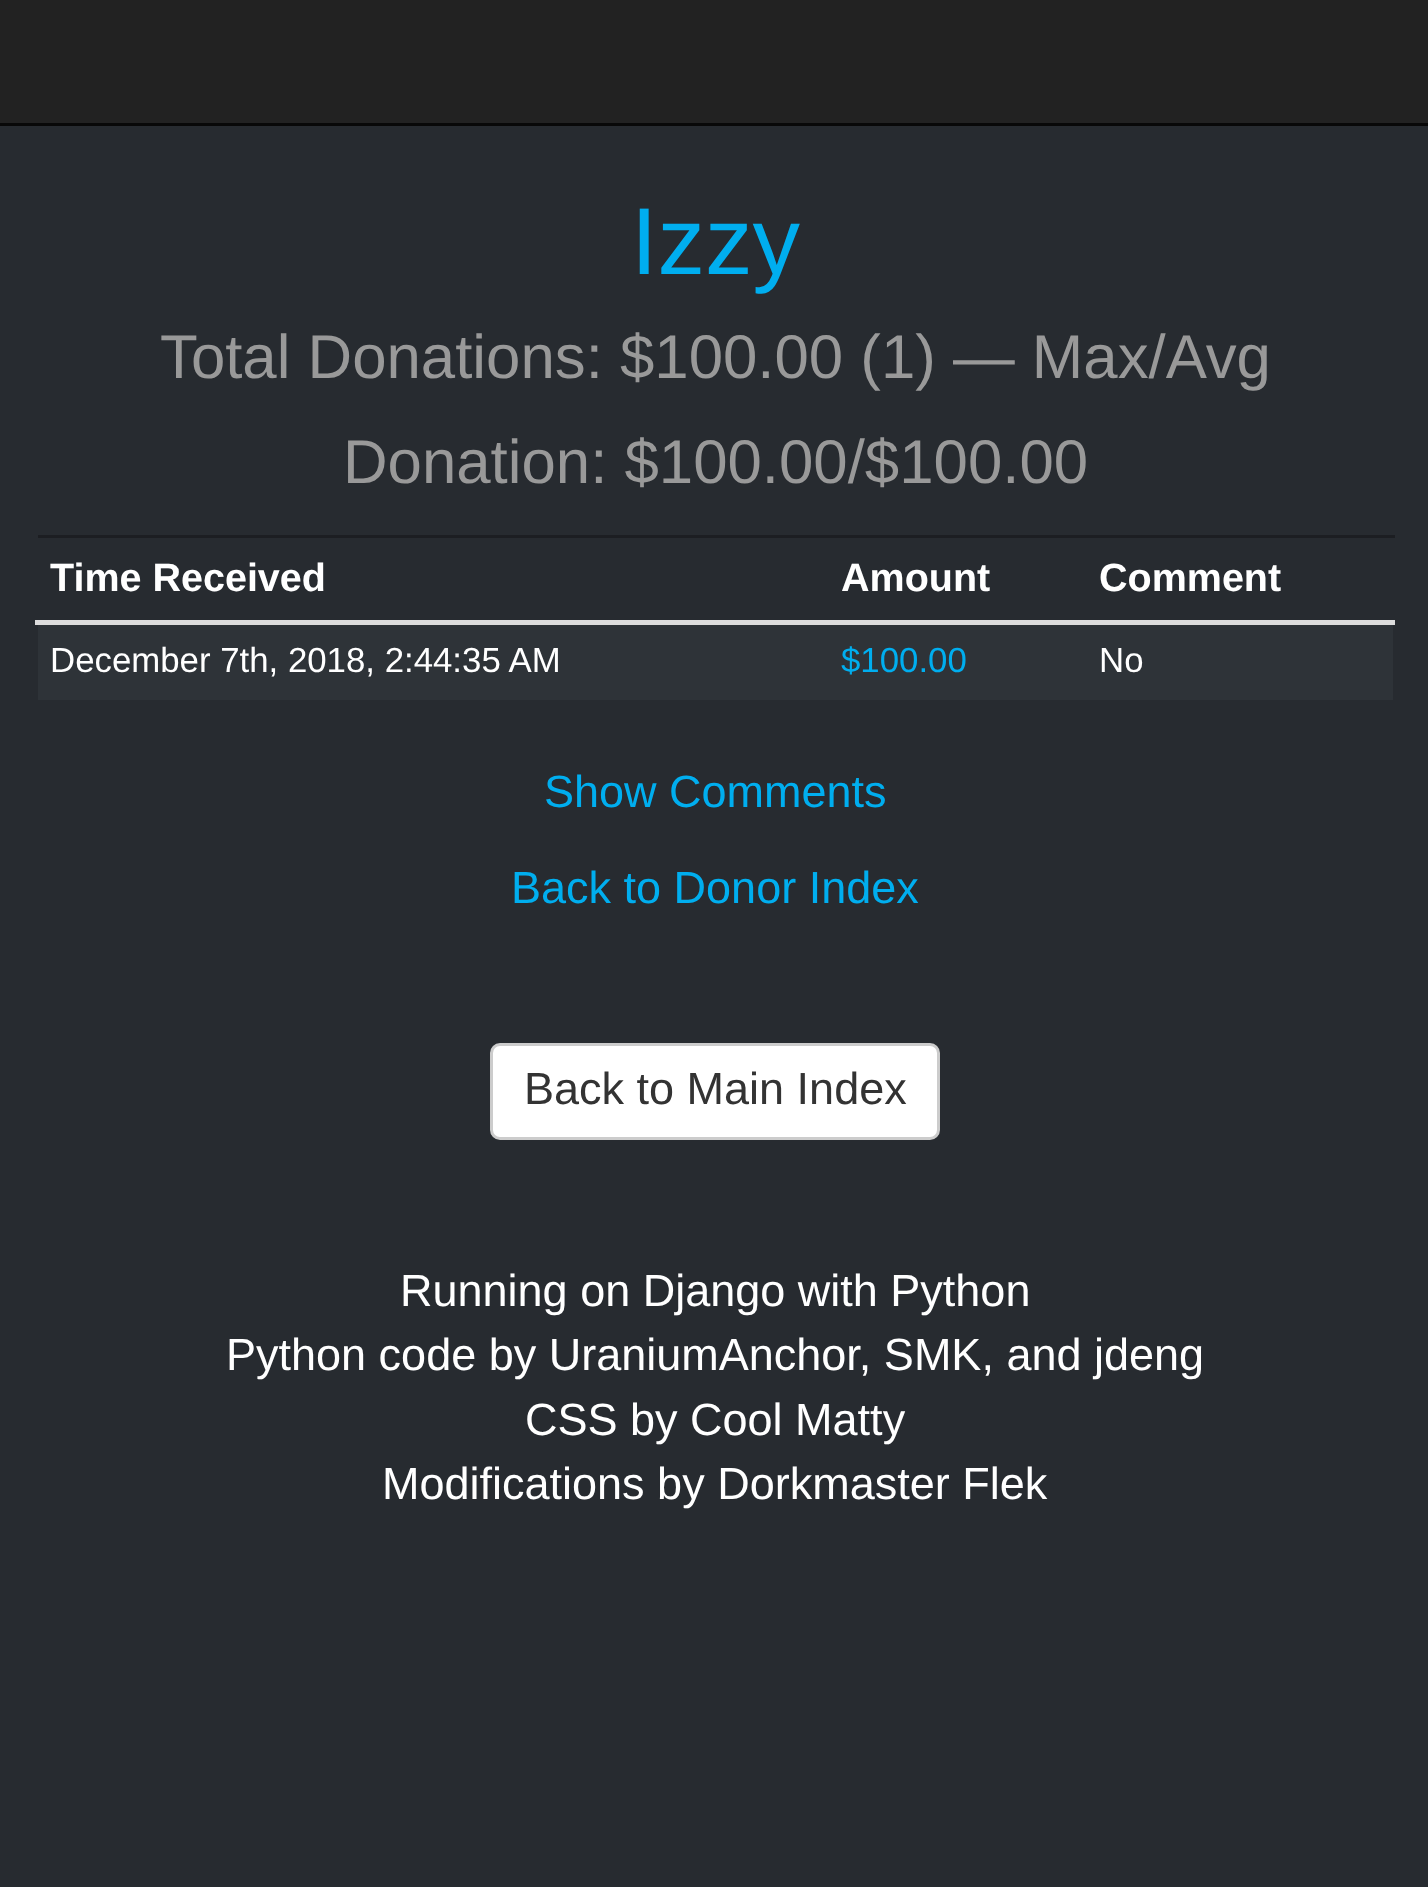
<!DOCTYPE html>
<meta charset="utf-8">
<style>body { margin: 0 } canvas { display: block }</style>
<canvas id="canvas" width="1428" height="1887"></canvas>
<script type="module">
  const canvas = document.getElementById("canvas");
  const ctx = canvas.getContext("2d");
  ctx.miterLimit = 4;
  ctx.fontKerning = "normal";

  ctx.fillStyle = "#272b30";
  ctx.fillRect(0, 0, 1428, 1887);
  ctx.fillStyle = "#222222";
  ctx.fillRect(0, 0, 1428, 123);
  ctx.fillStyle = "#080808";
  ctx.fillRect(0, 123, 1428, 3);
  ctx.font = "95px Liberation Sans";
  ctx.fillStyle = "#00aeef";
  ctx.fillText("Izzy", 631, 274);
  ctx.font = "61.75px Liberation Sans";
  ctx.fillStyle = "#999999";
  ctx.fillText("Total Donations: $100.00 (1) — Max/Avg", 160, 378);
  ctx.fillText("Donation: $100.00/$100.00", 343, 483);
  ctx.font = "bold 39.5px Liberation Sans";
  ctx.fillStyle = "#ffffff";
  ctx.fillText("Time Received", 50, 591);
  ctx.fillText("Amount", 841, 591);
  ctx.fillStyle = "#1c1e22";
  ctx.fillRect(38, 535, 1357, 3);
  ctx.fillStyle = "#dddddd";
  ctx.fillRect(35, 620, 1360, 5);
  ctx.fillStyle = "#ffffff";
  ctx.fillText("Comment", 1099, 591);
  ctx.fillStyle = "#2e3338";
  ctx.fillRect(38, 625, 1355, 75);
  ctx.font = "34.8px Liberation Sans";
  ctx.fillStyle = "#ffffff";
  ctx.fillText("December 7th, 2018, 2:44:35 AM", 50, 672);
  ctx.fillStyle = "#00aeef";
  ctx.fillText("$100.00", 841, 672);
  ctx.fillStyle = "#ffffff";
  ctx.fillText("No", 1099, 672);
  ctx.font = "45px Liberation Sans";
  ctx.fillStyle = "#00aeef";
  ctx.fillText("Show Comments", 544, 807);
  ctx.fillText("Back to Donor Index", 511, 903);
  ctx.fillStyle = "#ffffff";
  ctx.beginPath();
  ctx.roundRect(491.5, 1044.5, 447, 94, 8.5);
  ctx.fill();
  ctx.strokeStyle = "#cccccc";
  ctx.lineWidth = 3;
  ctx.stroke();
  ctx.fillStyle = "#333333";
  ctx.fillText("Back to Main Index", 524, 1104);
  ctx.fillStyle = "#ffffff";
  ctx.fillText("Running on Django with Python", 400, 1306);
  ctx.fillText("Python code by UraniumAnchor, SMK, and jdeng", 226, 1370);
  ctx.fillText("CSS by Cool Matty", 525, 1435);
  ctx.fillText("Modifications by Dorkmaster Flek", 382, 1499);
</script>
